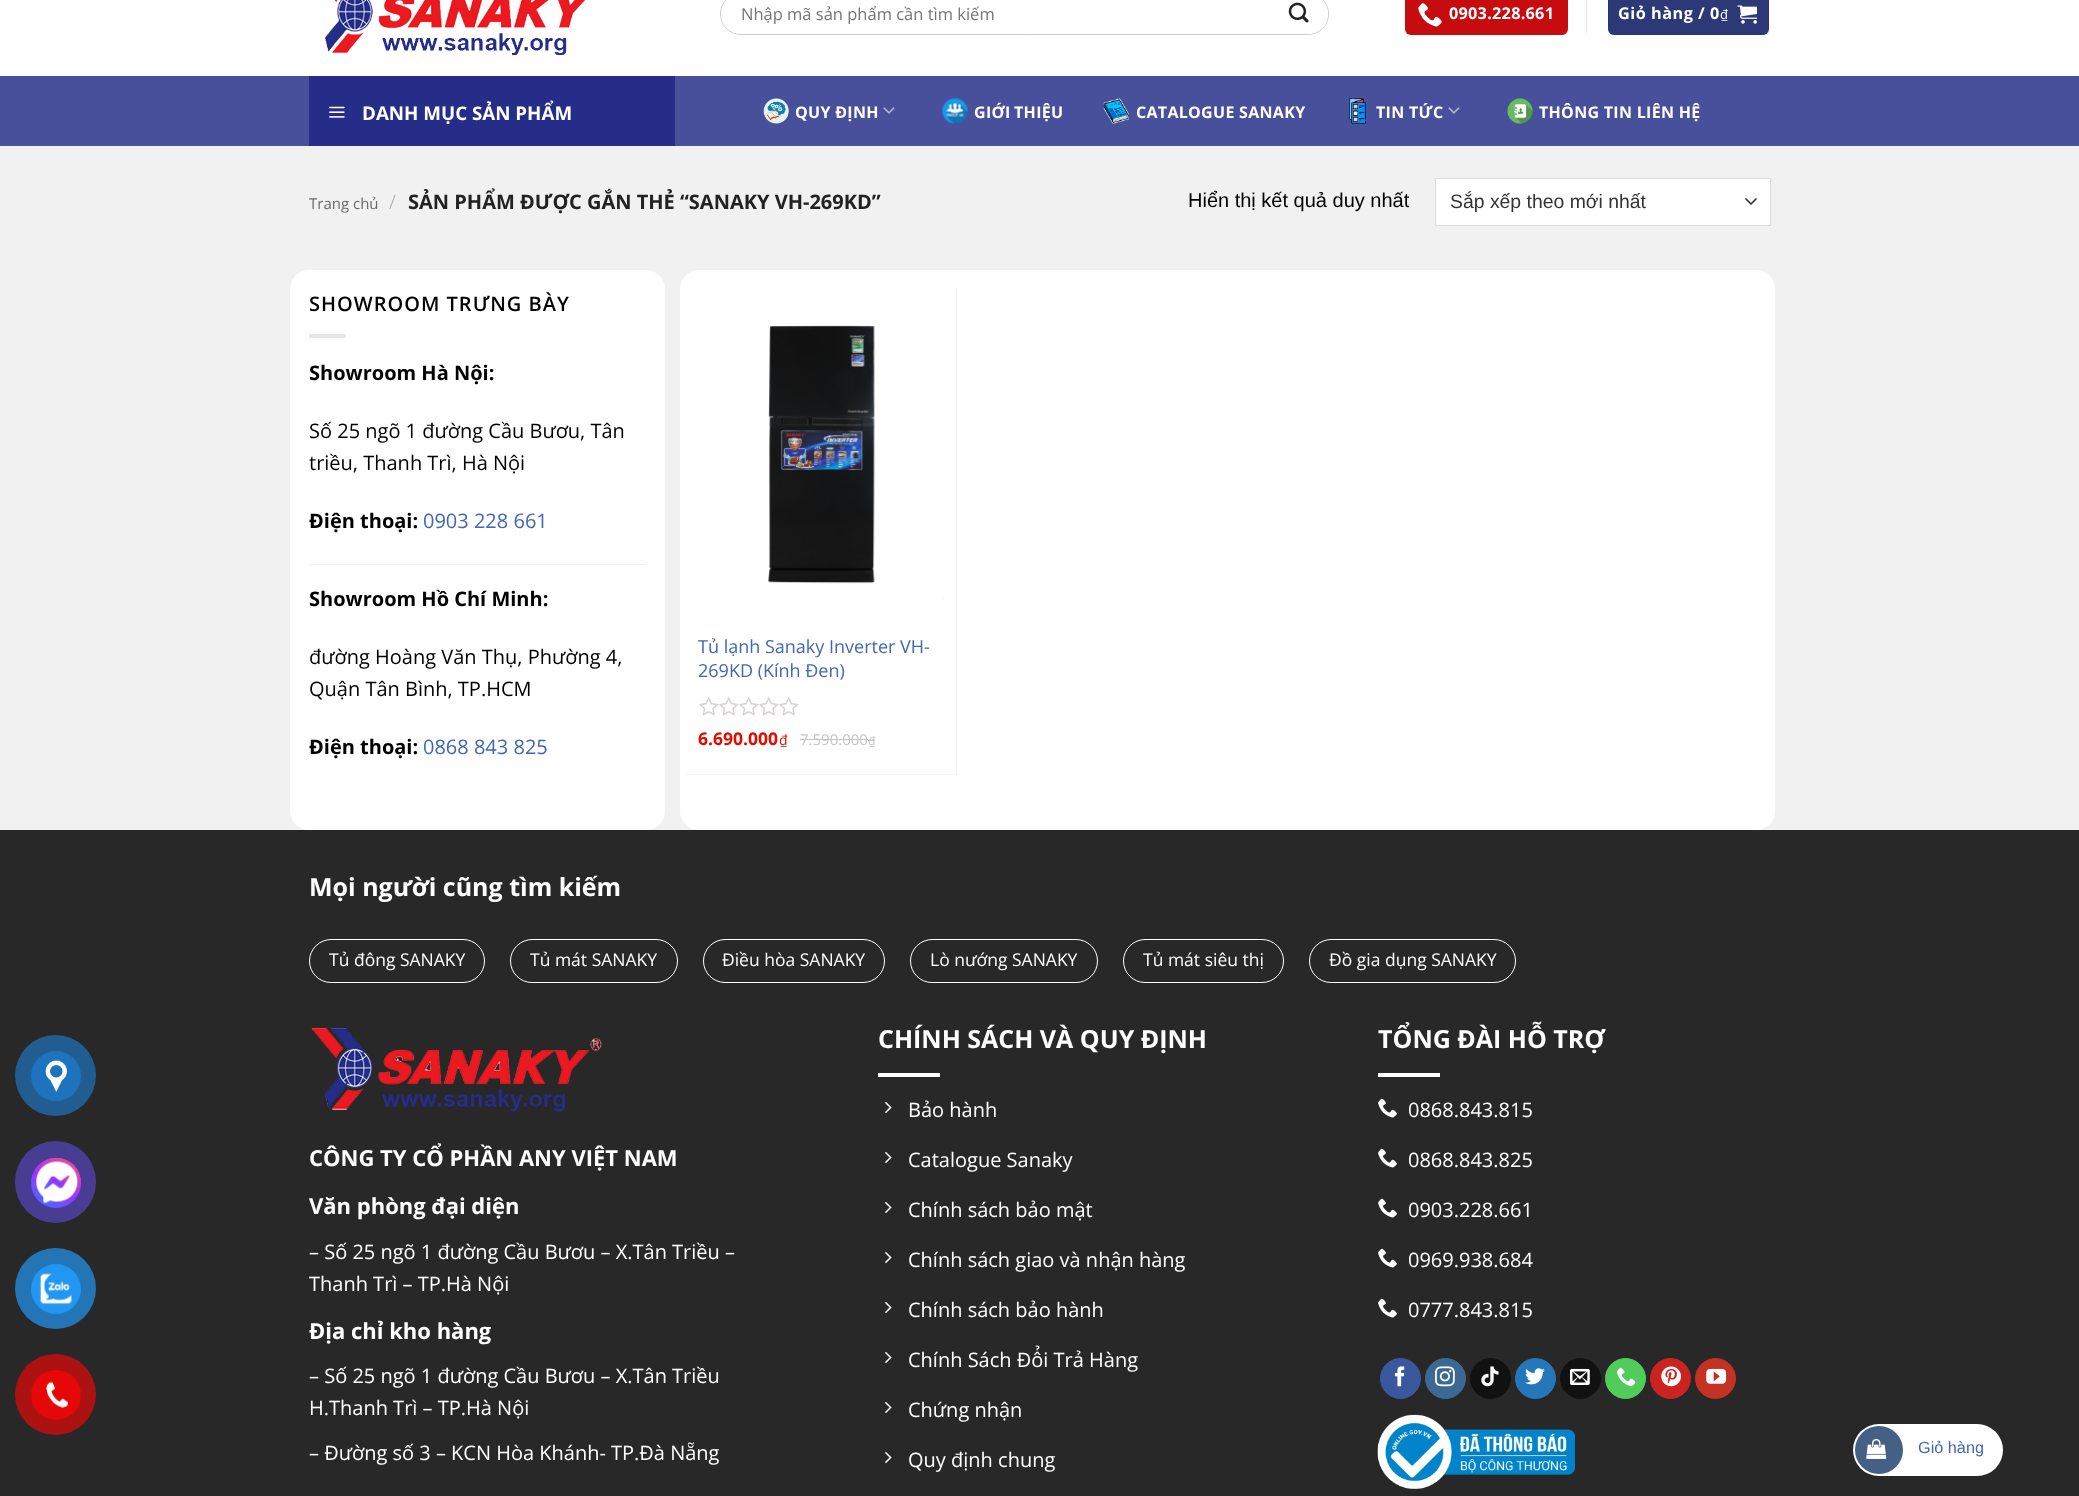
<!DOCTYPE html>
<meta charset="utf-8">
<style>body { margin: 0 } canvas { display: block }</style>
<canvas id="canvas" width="2079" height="1496"></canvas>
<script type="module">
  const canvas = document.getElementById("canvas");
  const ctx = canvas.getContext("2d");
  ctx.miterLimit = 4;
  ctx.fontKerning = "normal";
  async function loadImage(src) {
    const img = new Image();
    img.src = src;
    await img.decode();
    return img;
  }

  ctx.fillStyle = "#f1f1f1";
  ctx.fillRect(0, 0, 2079, 1496);
  ctx.fillStyle = "#282828";
  ctx.fillRect(0, 830, 2079, 666);
  ctx.fillStyle = "#215d91";
  ctx.beginPath();
  ctx.arc(55.5, 1075.5, 40.5, 0, Math.PI * 2);
  ctx.fill();
  ctx.fillStyle = "#1e73be";
  ctx.beginPath();
  ctx.arc(56, 1076, 25, 0, Math.PI * 2);
  ctx.fill();
  ctx.drawImage(await loadImage("img1.png"), 45, 1060, 22, 32);
  ctx.fillStyle = "#493c93";
  ctx.beginPath();
  ctx.roundRect(15, 1141, 81, 82, 40.5);
  ctx.fill();
  ctx.fillStyle = "#6a4ffe";
  ctx.beginPath();
  ctx.arc(56, 1183, 25, 0, Math.PI * 2);
  ctx.fill();
  ctx.drawImage(await loadImage("img2.png"), 31, 1158, 50, 50);
  ctx.fillStyle = "#2375b6";
  ctx.beginPath();
  ctx.arc(55.5, 1288.5, 40.5, 0, Math.PI * 2);
  ctx.fill();
  ctx.fillStyle = "#2196f3";
  ctx.beginPath();
  ctx.arc(56, 1289, 25, 0, Math.PI * 2);
  ctx.fill();
  ctx.drawImage(await loadImage("img3.png"), 39, 1273, 33, 32);
  ctx.fillStyle = "#ad1212";
  ctx.beginPath();
  ctx.arc(55.5, 1394.5, 40.5, 0, Math.PI * 2);
  ctx.fill();
  ctx.fillStyle = "#e60808";
  ctx.beginPath();
  ctx.arc(56, 1395, 25, 0, Math.PI * 2);
  ctx.fill();
  ctx.drawImage(await loadImage("img4.png"), 46, 1381, 22, 27);
  ctx.fillStyle = "#ffffff";
  ctx.fillRect(0, 0, 2079, 76);
  ctx.drawImage(await loadImage("img5.png"), 324, 0, 262, 56);
  ctx.beginPath();
  ctx.roundRect(720.5, -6.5, 608, 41, 20.5);
  ctx.strokeStyle = "#cccccc";
  ctx.stroke();
  ctx.beginPath();
  ctx.moveTo(741, -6);
  ctx.lineTo(1270, -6);
  ctx.lineTo(1270, 34);
  ctx.lineTo(741, 34);
  ctx.bezierCurveTo(730, 34, 721, 25, 721, 14);
  ctx.bezierCurveTo(721, 3, 730, -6, 741, -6);
  ctx.closePath();
  ctx.fill();
  ctx.font = "16.5px Open Sans";
  ctx.fillStyle = "#757575";
  ctx.fillText("Nhập mã sản phẩm cần tìm kiếm", 741, 20);
  ctx.fillStyle = "#ffffff";
  ctx.beginPath();
  ctx.moveTo(1270, -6);
  ctx.lineTo(1308, -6);
  ctx.bezierCurveTo(1319, -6, 1328, 3, 1328, 14);
  ctx.bezierCurveTo(1328, 25, 1319, 34, 1308, 34);
  ctx.lineTo(1270, 34);
  ctx.closePath();
  ctx.fill();
  ctx.drawImage(await loadImage("img6.png"), 1288, 2, 21, 21);
  ctx.fillStyle = "#c60c0f";
  ctx.beginPath();
  ctx.roundRect(1405, -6, 163, 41, 6);
  ctx.fill();
  ctx.drawImage(await loadImage("img7.png"), 1418, 3, 24, 24);
  ctx.letterSpacing = "0.25px";
  ctx.font = "bold 16.25px Open Sans";
  ctx.fillStyle = "#ffffff";
  ctx.fillText("0903.228.661", 1449, 19);
  ctx.fillStyle = "#e6e6e6";
  ctx.fillRect(1586, 0, 1, 33);
  ctx.fillStyle = "#2d3877";
  ctx.beginPath();
  ctx.roundRect(1608, -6, 161, 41, 6);
  ctx.fill();
  ctx.strokeStyle = "rgba(0, 0, 0, 0.05)";
  ctx.strokeRect(1608.5, -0.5, 160, 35);
  ctx.letterSpacing = "0.5px";
  ctx.fillStyle = "#ffffff";
  ctx.fillText("Giỏ hàng / 0", 1618, 19);
  ctx.font = "13px Open Sans";
  ctx.fillText("₫", 1720, 19);
  ctx.drawImage(await loadImage("img8.png"), 1737, 5, 20, 19);
  ctx.fillStyle = "#49509b";
  ctx.fillRect(0, 76, 2079, 70);
  ctx.fillStyle = "#252d88";
  ctx.fillRect(309, 76, 366, 70);
  ctx.drawImage(await loadImage("img9.png"), 329, 106, 16, 12);
  ctx.letterSpacing = "0px";
  ctx.font = "bold 18.75px Open Sans";
  ctx.fillStyle = "#ffffff";
  ctx.fillText("DANH MỤC SẢN PHẨM", 362, 120);
  ctx.drawImage(await loadImage("img10.png"), 763, 98, 26, 26);
  ctx.letterSpacing = "0.3px";
  ctx.font = "bold 16px Open Sans";
  ctx.fillText("QUY ĐỊNH", 795, 118);
  ctx.drawImage(await loadImage("img11.png"), 883, 107, 12, 7);
  ctx.drawImage(await loadImage("img12.png"), 942, 98, 26, 26);
  ctx.wordSpacing = "-1px";
  ctx.fillText("GIỚI THIỆU", 974, 118);
  ctx.drawImage(await loadImage("img13.png"), 1103, 98, 26, 26);
  ctx.wordSpacing = "0px";
  ctx.fillText("CATALOGUE SANAKY", 1136, 118);
  ctx.drawImage(await loadImage("img14.png"), 1349, 98, 17, 26);
  ctx.fillText("TIN TỨC", 1376, 118);
  ctx.drawImage(await loadImage("img11.png"), 1448, 107, 12, 7);
  ctx.drawImage(await loadImage("img15.png"), 1507, 98, 26, 26);
  ctx.fillText("THÔNG TIN LIÊN HỆ", 1539, 118);
  ctx.letterSpacing = "0px";
  ctx.font = "15px Open Sans";
  ctx.fillStyle = "#6b6b6b";
  ctx.fillText("Trang chủ", 309, 209);
  ctx.font = "300 20px Open Sans";
  ctx.fillStyle = "#a9a9a9";
  ctx.fillText("/", 389, 209);
  ctx.font = "bold 20px Open Sans";
  ctx.fillStyle = "#222222";
  ctx.fillText("SẢN PHẨM ĐƯỢC GẮN THẺ “SANAKY VH-269KD”", 408, 209);
  ctx.font = "20px Liberation Sans";
  ctx.fillStyle = "#000000";
  ctx.fillText("Hiển thị kết quả duy nhất", 1188, 207);
  ctx.fillStyle = "#ffffff";
  ctx.fillRect(1436, 179, 334, 46);
  ctx.beginPath();
  ctx.moveTo(1746, 199);
  ctx.lineTo(1751, 204);
  ctx.lineTo(1756, 199);
  ctx.strokeStyle = "#333333";
  ctx.lineWidth = 1.7;
  ctx.lineCap = "round";
  ctx.lineJoin = "round";
  ctx.stroke();
  ctx.strokeStyle = "#dddddd";
  ctx.lineWidth = 1;
  ctx.lineJoin = "miter";
  ctx.strokeRect(1435.5, 178.5, 335, 47);
  ctx.font = "19.4px Liberation Sans";
  ctx.fillStyle = "#333333";
  ctx.fillText("Sắp xếp theo mới nhất", 1450, 208);
  ctx.fillStyle = "#ffffff";
  ctx.beginPath();
  ctx.roundRect(290, 270, 375, 560, 19);
  ctx.fill();
  ctx.letterSpacing = "1px";
  ctx.font = "600 20px Open Sans";
  ctx.fillStyle = "#000000";
  ctx.fillText("SHOWROOM TRƯNG BÀY", 309, 311);
  ctx.fillStyle = "#e6e6e6";
  ctx.fillRect(309, 334, 37, 4);
  ctx.letterSpacing = "0px";
  ctx.font = "bold 20px Open Sans";
  ctx.fillStyle = "#000000";
  ctx.fillText("Showroom Hà Nội:", 309, 380);
  ctx.font = "20px Open Sans";
  ctx.fillText("Số 25 ngõ 1 đường Cầu Bươu, Tân", 309, 438);
  ctx.fillText("triều, Thanh Trì, Hà Nội", 309, 470);
  ctx.font = "bold 20px Open Sans";
  ctx.fillText("Điện thoại:", 309, 528);
  ctx.font = "20px Open Sans";
  ctx.fillStyle = "#4267b2";
  ctx.fillText("0903 228 661", 423, 528);
  ctx.fillStyle = "#f2f2f2";
  ctx.fillRect(309, 564, 337, 1);
  ctx.font = "bold 20px Open Sans";
  ctx.fillStyle = "#000000";
  ctx.fillText("Showroom Hồ Chí Minh:", 309, 606);
  ctx.font = "20px Open Sans";
  ctx.fillText("đường Hoàng Văn Thụ, Phường 4,", 309, 664);
  ctx.fillText("Quận Tân Bình, TP.HCM", 309, 696);
  ctx.font = "bold 20px Open Sans";
  ctx.fillText("Điện thoại:", 309, 754);
  ctx.font = "20px Open Sans";
  ctx.fillStyle = "#4267b2";
  ctx.fillText("0868 843 825", 423, 754);
  ctx.fillStyle = "#ffffff";
  ctx.beginPath();
  ctx.roundRect(680, 270, 1095, 560, 19);
  ctx.fill();
  ctx.fillStyle = "#f3f3f3";
  ctx.fillRect(956, 289, 1, 486);
  ctx.fillRect(686, 774, 272, 1);
  ctx.drawImage(await loadImage("img16.png"), 768, 325, 176, 274);
  ctx.font = "18px Open Sans";
  ctx.fillStyle = "#4267b2";
  ctx.fillText("Tủ lạnh Sanaky Inverter VH-", 698, 653);
  ctx.fillText("269KD (Kính Đen)", 698, 677);
  ctx.drawImage(await loadImage("img17.png"), 699, 697, 100, 19);
  ctx.font = "bold 17.5px Open Sans";
  ctx.fillStyle = "#e10c00";
  ctx.fillText("6.690.000", 698, 745);
  ctx.font = "14px Open Sans";
  ctx.fillText("₫", 779, 745);
  ctx.font = "15px Open Sans";
  ctx.fillStyle = "#c5c5c5";
  ctx.fillText("7.590.000", 800, 745);
  ctx.fillRect(800, 739, 68, 1);
  ctx.font = "12px Open Sans";
  ctx.fillText("₫", 868, 745);
  ctx.fillRect(868, 740, 7, 1);
  ctx.font = "bold 25px Open Sans";
  ctx.fillStyle = "#ffffff";
  ctx.fillText("Mọi người cũng tìm kiếm", 309, 896);
  ctx.beginPath();
  ctx.roundRect(309.5, 939.5, 175, 43, 21.5);
  ctx.strokeStyle = "#ffffff";
  ctx.stroke();
  ctx.font = "17.5px Open Sans";
  ctx.fillText("Tủ đông SANAKY", 329, 966);
  ctx.beginPath();
  ctx.roundRect(510.5, 939.5, 167, 43, 21.5);
  ctx.stroke();
  ctx.fillText("Tủ mát SANAKY", 530, 966);
  ctx.beginPath();
  ctx.roundRect(703.5, 939.5, 181, 43, 21.5);
  ctx.stroke();
  ctx.fillText("Điều hòa SANAKY", 722, 966);
  ctx.beginPath();
  ctx.roundRect(910.5, 939.5, 187, 43, 21.5);
  ctx.stroke();
  ctx.fillText("Lò nướng SANAKY", 930, 966);
  ctx.beginPath();
  ctx.roundRect(1123.5, 939.5, 160, 43, 21.5);
  ctx.stroke();
  ctx.fillText("Tủ mát siêu thị", 1143, 966);
  ctx.beginPath();
  ctx.roundRect(1309.5, 939.5, 206, 43, 21.5);
  ctx.stroke();
  ctx.fillText("Đồ gia dụng SANAKY", 1329, 966);
  ctx.drawImage(await loadImage("img18.png"), 311, 1028, 291, 84);
  ctx.font = "bold 22px Open Sans";
  ctx.fillText("CÔNG TY CỔ PHẦN ANY VIỆT NAM", 309, 1166);
  ctx.fillText("Văn phòng đại diện", 309, 1214);
  ctx.font = "20px Open Sans";
  ctx.fillText("– Số 25 ngõ 1 đường Cầu Bươu – X.Tân Triều –", 309, 1259);
  ctx.fillText("Thanh Trì – TP.Hà Nội", 309, 1291);
  ctx.font = "bold 22px Open Sans";
  ctx.fillText("Địa chỉ kho hàng", 309, 1339);
  ctx.font = "20px Open Sans";
  ctx.fillText("– Số 25 ngõ 1 đường Cầu Bươu – X.Tân Triều", 309, 1383);
  ctx.fillText("H.Thanh Trì – TP.Hà Nội", 309, 1415);
  ctx.fillText("– Đường số 3 – KCN Hòa Khánh- TP.Đà Nẵng", 309, 1460);
  ctx.font = "bold 25px Open Sans";
  ctx.fillText("CHÍNH SÁCH VÀ QUY ĐỊNH", 878, 1048);
  ctx.fillRect(878, 1073, 62, 4);
  ctx.drawImage(await loadImage("img19.png"), 885, 1102, 7, 11);
  ctx.font = "20px Open Sans";
  ctx.fillText("Bảo hành", 908, 1117);
  ctx.drawImage(await loadImage("img19.png"), 885, 1152, 7, 11);
  ctx.fillText("Catalogue Sanaky", 908, 1167);
  ctx.drawImage(await loadImage("img19.png"), 885, 1202, 7, 11);
  ctx.fillText("Chính sách bảo mật", 908, 1217);
  ctx.drawImage(await loadImage("img19.png"), 885, 1252, 7, 11);
  ctx.fillText("Chính sách giao và nhận hàng", 908, 1267);
  ctx.drawImage(await loadImage("img19.png"), 885, 1302, 7, 11);
  ctx.fillText("Chính sách bảo hành", 908, 1317);
  ctx.drawImage(await loadImage("img19.png"), 885, 1352, 7, 11);
  ctx.fillText("Chính Sách Đổi Trả Hàng", 908, 1367);
  ctx.drawImage(await loadImage("img19.png"), 885, 1402, 7, 11);
  ctx.fillText("Chứng nhận", 908, 1417);
  ctx.drawImage(await loadImage("img19.png"), 885, 1452, 7, 11);
  ctx.fillText("Quy định chung", 908, 1467);
  ctx.font = "bold 25px Open Sans";
  ctx.fillText("TỔNG ĐÀI HỖ TRỢ", 1378, 1048);
  ctx.fillRect(1378, 1073, 62, 4);
  ctx.drawImage(await loadImage("img20.png"), 1378, 1098, 19, 20);
  ctx.font = "20px Open Sans";
  ctx.fillText("0868.843.815", 1408, 1117);
  ctx.drawImage(await loadImage("img20.png"), 1378, 1148, 19, 20);
  ctx.fillText("0868.843.825", 1408, 1167);
  ctx.drawImage(await loadImage("img20.png"), 1378, 1198, 19, 20);
  ctx.fillText("0903.228.661", 1408, 1217);
  ctx.drawImage(await loadImage("img20.png"), 1378, 1248, 19, 20);
  ctx.fillText("0969.938.684", 1408, 1267);
  ctx.drawImage(await loadImage("img20.png"), 1378, 1298, 19, 20);
  ctx.fillText("0777.843.815", 1408, 1317);
  ctx.fillStyle = "#3a589d";
  ctx.beginPath();
  ctx.arc(1400.5, 1378.5, 20, 0, Math.PI * 2);
  ctx.fill();
  ctx.strokeStyle = "#3a589d";
  ctx.stroke();
  ctx.drawImage(await loadImage("img21.png"), 1394, 1366, 11, 21);
  ctx.fillStyle = "#3b6994";
  ctx.beginPath();
  ctx.arc(1445.5, 1378.5, 20, 0, Math.PI * 2);
  ctx.fill();
  ctx.strokeStyle = "#3b6994";
  ctx.stroke();
  ctx.drawImage(await loadImage("img22.png"), 1435, 1366, 20, 21);
  ctx.fillStyle = "#111111";
  ctx.beginPath();
  ctx.arc(1490.5, 1378.5, 20, 0, Math.PI * 2);
  ctx.fill();
  ctx.strokeStyle = "#111111";
  ctx.stroke();
  ctx.drawImage(await loadImage("img23.png"), 1481, 1366, 18, 21);
  ctx.fillStyle = "#2478ba";
  ctx.beginPath();
  ctx.arc(1535.5, 1378.5, 20, 0, Math.PI * 2);
  ctx.fill();
  ctx.strokeStyle = "#2478ba";
  ctx.stroke();
  ctx.drawImage(await loadImage("img24.png"), 1525, 1368, 20, 17);
  ctx.fillStyle = "#111111";
  ctx.beginPath();
  ctx.arc(1580.5, 1378.5, 20, 0, Math.PI * 2);
  ctx.fill();
  ctx.strokeStyle = "#111111";
  ctx.stroke();
  ctx.drawImage(await loadImage("img25.png"), 1570, 1368, 20, 17);
  ctx.fillStyle = "#51cb5a";
  ctx.beginPath();
  ctx.arc(1625.5, 1378.5, 20, 0, Math.PI * 2);
  ctx.fill();
  ctx.strokeStyle = "#51cb5a";
  ctx.stroke();
  ctx.drawImage(await loadImage("img26.png"), 1616, 1367, 20, 20);
  ctx.fillStyle = "#cb2320";
  ctx.beginPath();
  ctx.arc(1670.5, 1378.5, 20, 0, Math.PI * 2);
  ctx.fill();
  ctx.strokeStyle = "#cb2320";
  ctx.stroke();
  ctx.drawImage(await loadImage("img27.png"), 1661, 1366, 20, 21);
  ctx.fillStyle = "#c33223";
  ctx.beginPath();
  ctx.arc(1715.5, 1378.5, 20, 0, Math.PI * 2);
  ctx.fill();
  ctx.strokeStyle = "#c33223";
  ctx.stroke();
  ctx.drawImage(await loadImage("img28.png"), 1706, 1368, 21, 16);
  ctx.drawImage(await loadImage("img29.png"), 1377, 1414, 198, 75);
  ctx.fillStyle = "#ffffff";
  ctx.beginPath();
  ctx.roundRect(1853, 1424, 150, 52, 26);
  ctx.fill();
  ctx.fillStyle = "#446084";
  ctx.beginPath();
  ctx.arc(1879, 1450, 24, 0, Math.PI * 2);
  ctx.fill();
  ctx.drawImage(await loadImage("img30.png"), 1866, 1438, 21, 21);
  ctx.font = "16.25px Liberation Sans";
  ctx.fillStyle = "#4267b2";
  ctx.fillText("Giỏ hàng", 1918, 1453);
</script>
